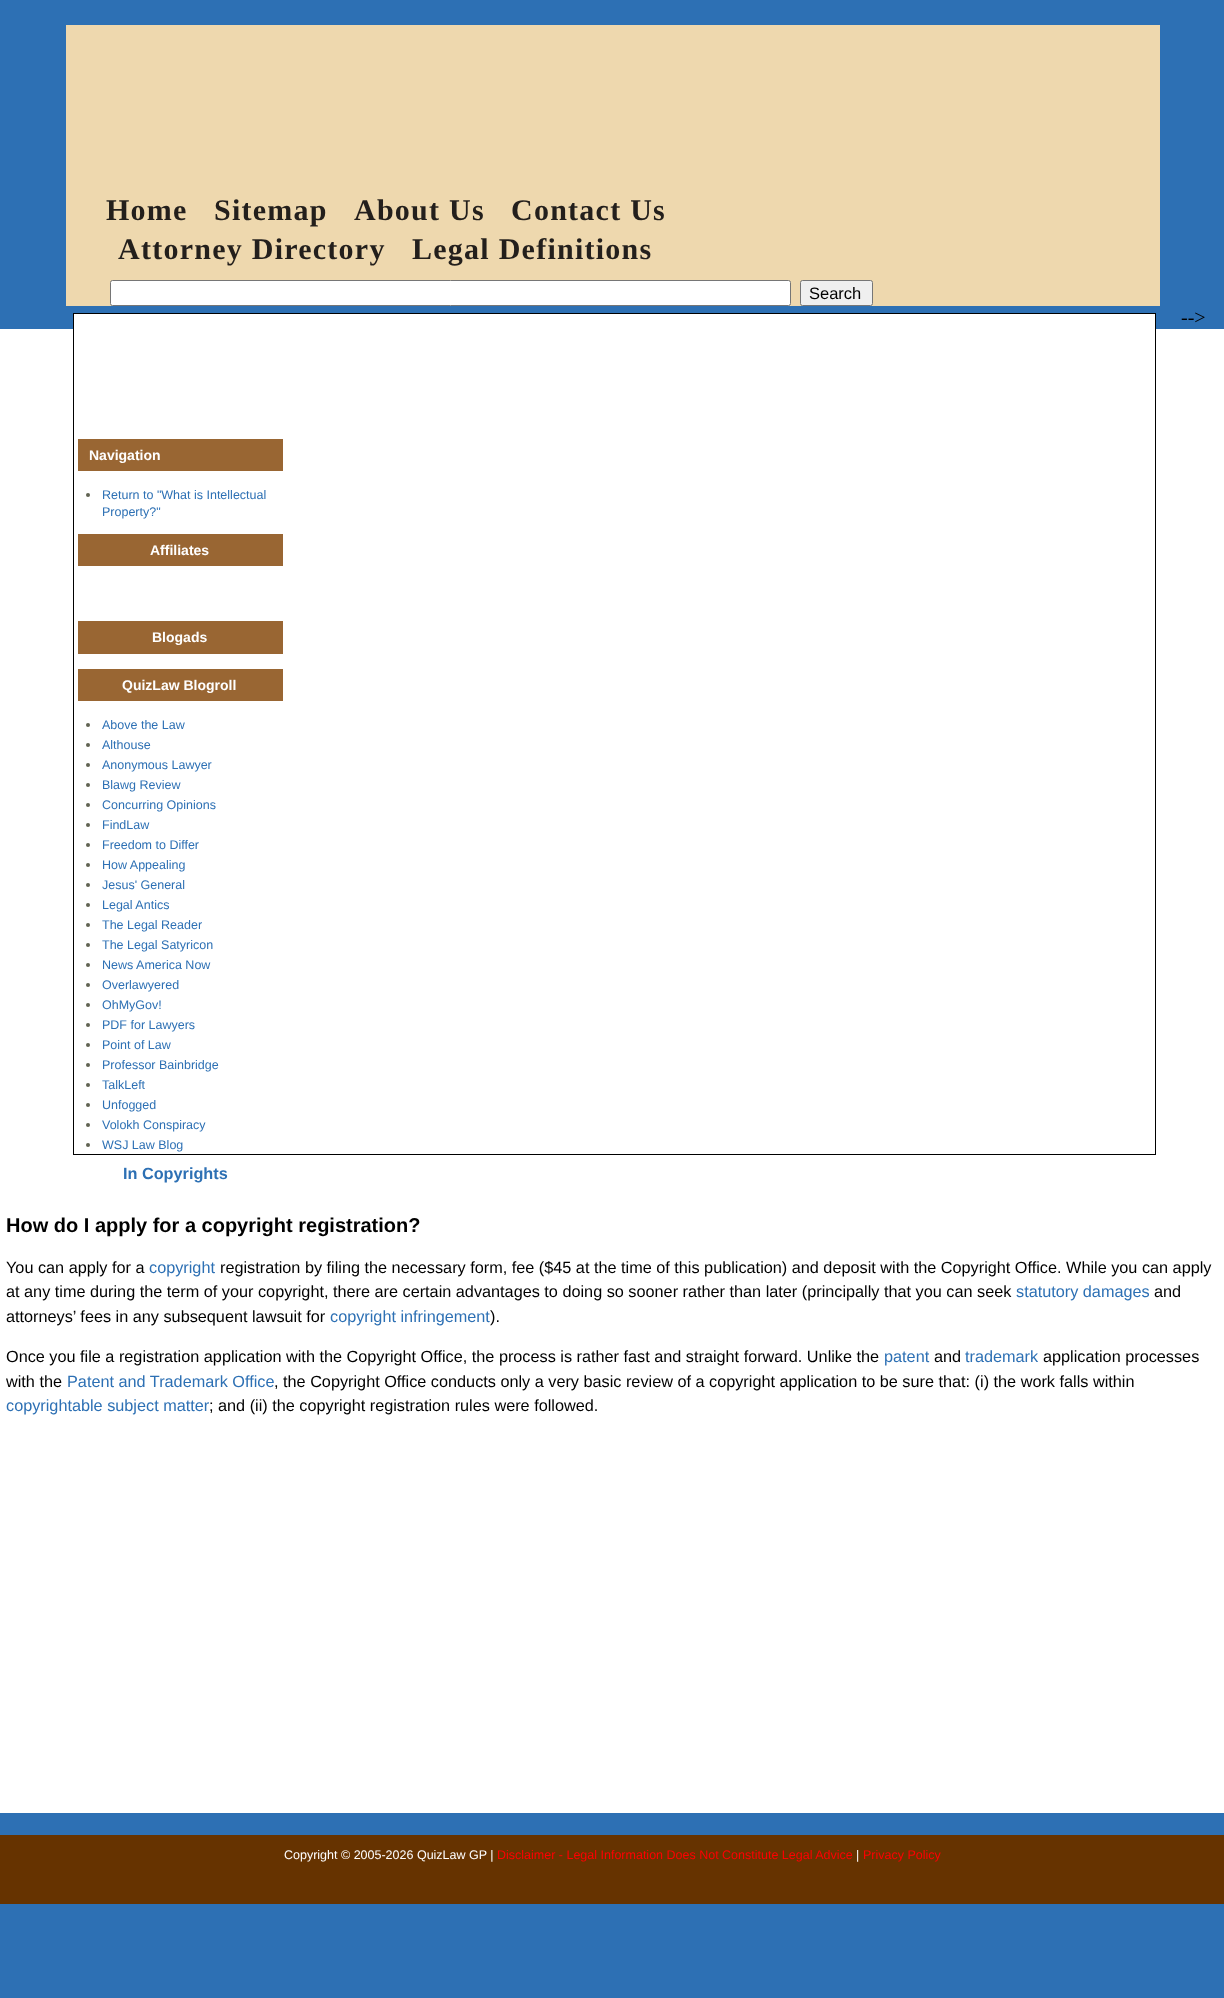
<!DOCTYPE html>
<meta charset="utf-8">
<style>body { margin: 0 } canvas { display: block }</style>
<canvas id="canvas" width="1224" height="1998"></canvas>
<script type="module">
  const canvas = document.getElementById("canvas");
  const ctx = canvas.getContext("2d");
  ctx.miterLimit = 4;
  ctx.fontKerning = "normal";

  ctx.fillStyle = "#2d70b4";
  ctx.fillRect(0, 0, 1224, 1998);
  ctx.fillStyle = "#eed8ae";
  ctx.fillRect(66, 25, 1094, 281);
  ctx.letterSpacing = "1.25px";
  ctx.font = "bold 30px Liberation Serif";
  ctx.fillStyle = "#231f1c";
  ctx.fillText("Home", 106, 220);
  ctx.fillText("Sitemap", 214, 220);
  ctx.fillText("About Us", 354, 220);
  ctx.fillText("Contact Us", 511, 220);
  ctx.fillText("Attorney Directory", 118, 259);
  ctx.fillText("Legal Definitions", 412, 259);
  ctx.fillStyle = "#ffffff";
  ctx.beginPath();
  ctx.roundRect(110.5, 280.5, 680, 25, 2);
  ctx.fill();
  ctx.strokeStyle = "#767676";
  ctx.stroke();
  ctx.fillStyle = "#efefef";
  ctx.beginPath();
  ctx.roundRect(800.5, 280.5, 72, 25, 2);
  ctx.fill();
  ctx.stroke();
  ctx.letterSpacing = "0px";
  ctx.font = "16.5px Liberation Sans";
  ctx.fillStyle = "#000000";
  ctx.fillText("Search", 809, 299);
  ctx.fillStyle = "#ffffff";
  ctx.fillRect(74, 314, 1081, 15);
  ctx.fillRect(0, 329, 1224, 1484);
  ctx.strokeStyle = "#000000";
  ctx.strokeRect(73.5, 313.5, 1082, 841);
  ctx.fillStyle = "#996633";
  ctx.fillRect(78, 439, 205, 32);
  ctx.font = "bold 14px Liberation Sans";
  ctx.fillStyle = "#ffffff";
  ctx.fillText("Navigation", 89, 460);
  ctx.fillStyle = "#606352";
  ctx.beginPath();
  ctx.arc(88, 495, 2, 0, Math.PI * 2);
  ctx.fill();
  ctx.font = "12.5px Liberation Sans";
  ctx.fillStyle = "#2d70b4";
  ctx.fillText("Return to \"What is Intellectual", 102, 499);
  ctx.fillText("Property?\"", 102, 516);
  ctx.fillStyle = "#996633";
  ctx.fillRect(78, 534, 205, 32);
  ctx.font = "bold 14px Liberation Sans";
  ctx.fillStyle = "#ffffff";
  ctx.fillText("Affiliates", 150, 555);
  ctx.fillStyle = "#996633";
  ctx.fillRect(78, 621, 205, 33);
  ctx.fillStyle = "#ffffff";
  ctx.fillText("Blogads", 152, 642);
  ctx.fillStyle = "#996633";
  ctx.fillRect(78, 669, 205, 32);
  ctx.fillStyle = "#ffffff";
  ctx.fillText("QuizLaw Blogroll", 122, 690);
  ctx.fillStyle = "#606352";
  ctx.beginPath();
  ctx.arc(88, 725, 2, 0, Math.PI * 2);
  ctx.fill();
  ctx.font = "12.5px Liberation Sans";
  ctx.fillStyle = "#2d70b4";
  ctx.fillText("Above the Law", 102, 729);
  ctx.fillStyle = "#606352";
  ctx.beginPath();
  ctx.arc(88, 745, 2, 0, Math.PI * 2);
  ctx.fill();
  ctx.fillStyle = "#2d70b4";
  ctx.fillText("Althouse", 102, 749);
  ctx.fillStyle = "#606352";
  ctx.beginPath();
  ctx.arc(88, 765, 2, 0, Math.PI * 2);
  ctx.fill();
  ctx.fillStyle = "#2d70b4";
  ctx.fillText("Anonymous Lawyer", 102, 769);
  ctx.fillStyle = "#606352";
  ctx.beginPath();
  ctx.arc(88, 785, 2, 0, Math.PI * 2);
  ctx.fill();
  ctx.fillStyle = "#2d70b4";
  ctx.fillText("Blawg Review", 102, 789);
  ctx.fillStyle = "#606352";
  ctx.beginPath();
  ctx.arc(88, 805, 2, 0, Math.PI * 2);
  ctx.fill();
  ctx.fillStyle = "#2d70b4";
  ctx.fillText("Concurring Opinions", 102, 809);
  ctx.fillStyle = "#606352";
  ctx.beginPath();
  ctx.arc(88, 825, 2, 0, Math.PI * 2);
  ctx.fill();
  ctx.fillStyle = "#2d70b4";
  ctx.fillText("FindLaw", 102, 829);
  ctx.fillStyle = "#606352";
  ctx.beginPath();
  ctx.arc(88, 845, 2, 0, Math.PI * 2);
  ctx.fill();
  ctx.fillStyle = "#2d70b4";
  ctx.fillText("Freedom to Differ", 102, 849);
  ctx.fillStyle = "#606352";
  ctx.beginPath();
  ctx.arc(88, 865, 2, 0, Math.PI * 2);
  ctx.fill();
  ctx.fillStyle = "#2d70b4";
  ctx.fillText("How Appealing", 102, 869);
  ctx.fillStyle = "#606352";
  ctx.beginPath();
  ctx.arc(88, 885, 2, 0, Math.PI * 2);
  ctx.fill();
  ctx.fillStyle = "#2d70b4";
  ctx.fillText("Jesus' General", 102, 889);
  ctx.fillStyle = "#606352";
  ctx.beginPath();
  ctx.arc(88, 905, 2, 0, Math.PI * 2);
  ctx.fill();
  ctx.fillStyle = "#2d70b4";
  ctx.fillText("Legal Antics", 102, 909);
  ctx.fillStyle = "#606352";
  ctx.beginPath();
  ctx.arc(88, 925, 2, 0, Math.PI * 2);
  ctx.fill();
  ctx.fillStyle = "#2d70b4";
  ctx.fillText("The Legal Reader", 102, 929);
  ctx.fillStyle = "#606352";
  ctx.beginPath();
  ctx.arc(88, 945, 2, 0, Math.PI * 2);
  ctx.fill();
  ctx.fillStyle = "#2d70b4";
  ctx.fillText("The Legal Satyricon", 102, 949);
  ctx.fillStyle = "#606352";
  ctx.beginPath();
  ctx.arc(88, 965, 2, 0, Math.PI * 2);
  ctx.fill();
  ctx.fillStyle = "#2d70b4";
  ctx.fillText("News America Now", 102, 969);
  ctx.fillStyle = "#606352";
  ctx.beginPath();
  ctx.arc(88, 985, 2, 0, Math.PI * 2);
  ctx.fill();
  ctx.fillStyle = "#2d70b4";
  ctx.fillText("Overlawyered", 102, 989);
  ctx.fillStyle = "#606352";
  ctx.beginPath();
  ctx.arc(88, 1005, 2, 0, Math.PI * 2);
  ctx.fill();
  ctx.fillStyle = "#2d70b4";
  ctx.fillText("OhMyGov!", 102, 1009);
  ctx.fillStyle = "#606352";
  ctx.beginPath();
  ctx.arc(88, 1025, 2, 0, Math.PI * 2);
  ctx.fill();
  ctx.fillStyle = "#2d70b4";
  ctx.fillText("PDF for Lawyers", 102, 1029);
  ctx.fillStyle = "#606352";
  ctx.beginPath();
  ctx.arc(88, 1045, 2, 0, Math.PI * 2);
  ctx.fill();
  ctx.fillStyle = "#2d70b4";
  ctx.fillText("Point of Law", 102, 1049);
  ctx.fillStyle = "#606352";
  ctx.beginPath();
  ctx.arc(88, 1065, 2, 0, Math.PI * 2);
  ctx.fill();
  ctx.fillStyle = "#2d70b4";
  ctx.fillText("Professor Bainbridge", 102, 1069);
  ctx.fillStyle = "#606352";
  ctx.beginPath();
  ctx.arc(88, 1085, 2, 0, Math.PI * 2);
  ctx.fill();
  ctx.fillStyle = "#2d70b4";
  ctx.fillText("TalkLeft", 102, 1089);
  ctx.fillStyle = "#606352";
  ctx.beginPath();
  ctx.arc(88, 1105, 2, 0, Math.PI * 2);
  ctx.fill();
  ctx.fillStyle = "#2d70b4";
  ctx.fillText("Unfogged", 102, 1109);
  ctx.fillStyle = "#606352";
  ctx.beginPath();
  ctx.arc(88, 1125, 2, 0, Math.PI * 2);
  ctx.fill();
  ctx.fillStyle = "#2d70b4";
  ctx.fillText("Volokh Conspiracy", 102, 1129);
  ctx.fillStyle = "#606352";
  ctx.beginPath();
  ctx.arc(88, 1145, 2, 0, Math.PI * 2);
  ctx.fill();
  ctx.fillStyle = "#2d70b4";
  ctx.fillText("WSJ Law Blog", 102, 1149);
  ctx.font = "20px Liberation Serif";
  ctx.fillStyle = "#000000";
  ctx.fillText("-->", 1181, 324);
  ctx.font = "bold 16.25px Liberation Sans";
  ctx.fillStyle = "#2d70b4";
  ctx.fillText("In Copyrights", 123, 1179);
  ctx.font = "bold 20px Liberation Sans";
  ctx.fillStyle = "#000000";
  ctx.fillText("How do I apply for a copyright registration?", 6, 1232);
  ctx.font = "16.25px Liberation Sans";
  ctx.fillText("You can apply for a", 6, 1273);
  ctx.fillStyle = "#2d70b4";
  ctx.fillText("copyright", 149, 1273);
  ctx.fillStyle = "#000000";
  ctx.fillText("registration by filing the necessary form, fee ($45 at the time of this publication) and deposit with the Copyright Office. While you can apply", 220, 1273);
  ctx.fillText("at any time during the term of your copyright, there are certain advantages to doing so sooner rather than later (principally that you can seek", 6, 1297);
  ctx.fillStyle = "#2d70b4";
  ctx.fillText("statutory damages", 1016, 1297);
  ctx.fillStyle = "#000000";
  ctx.fillText("and", 1154, 1297);
  ctx.fillText("attorneys’ fees in any subsequent lawsuit for", 6, 1322);
  ctx.fillStyle = "#2d70b4";
  ctx.fillText("copyright infringement", 330, 1322);
  ctx.fillStyle = "#000000";
  ctx.fillText(").", 490, 1322);
  ctx.fillText("Once you file a registration application with the Copyright Office, the process is rather fast and straight forward. Unlike the", 6, 1362);
  ctx.fillStyle = "#2d70b4";
  ctx.fillText("patent", 884, 1362);
  ctx.fillStyle = "#000000";
  ctx.fillText("and", 934, 1362);
  ctx.fillStyle = "#2d70b4";
  ctx.fillText("trademark", 965, 1362);
  ctx.fillStyle = "#000000";
  ctx.fillText("application processes", 1043, 1362);
  ctx.fillText("with the", 6, 1387);
  ctx.fillStyle = "#2d70b4";
  ctx.fillText("Patent and Trademark Office", 67, 1387);
  ctx.fillStyle = "#000000";
  ctx.fillText(", the Copyright Office conducts only a very basic review of a copyright application to be sure that: (i) the work falls within", 274, 1387);
  ctx.fillStyle = "#2d70b4";
  ctx.fillText("copyrightable subject matter", 6, 1411);
  ctx.fillStyle = "#000000";
  ctx.fillText("; and (ii) the copyright registration rules were followed.", 209, 1411);
  ctx.fillStyle = "#663300";
  ctx.fillRect(0, 1835, 1224, 69);
  ctx.font = "12.5px Liberation Sans";
  ctx.fillStyle = "#ffffff";
  ctx.fillText("Copyright © 2005-2026 QuizLaw GP |", 284, 1859);
  ctx.fillStyle = "#ff0000";
  ctx.fillText("Disclaimer - Legal Information Does Not Constitute Legal Advice", 497, 1859);
  ctx.fillStyle = "#ffffff";
  ctx.fillText("|", 856, 1859);
  ctx.fillStyle = "#ff0000";
  ctx.fillText("Privacy Policy", 863, 1859);
</script>
